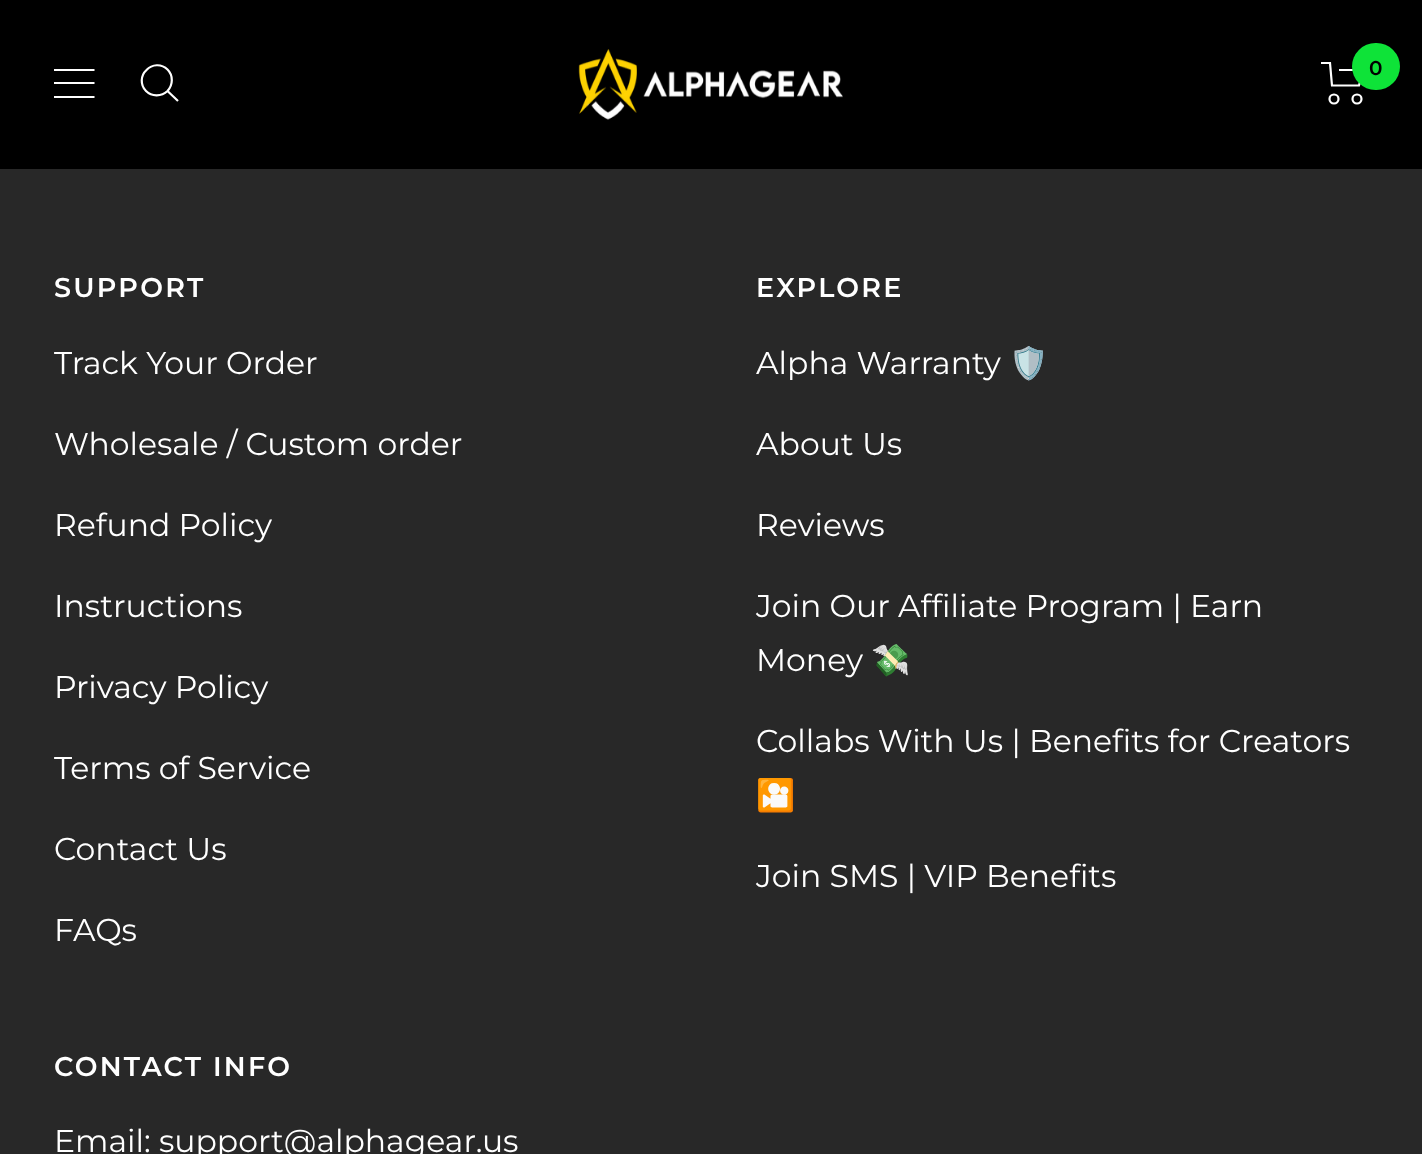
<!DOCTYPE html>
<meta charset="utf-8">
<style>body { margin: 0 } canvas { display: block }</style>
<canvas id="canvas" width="1422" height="1154"></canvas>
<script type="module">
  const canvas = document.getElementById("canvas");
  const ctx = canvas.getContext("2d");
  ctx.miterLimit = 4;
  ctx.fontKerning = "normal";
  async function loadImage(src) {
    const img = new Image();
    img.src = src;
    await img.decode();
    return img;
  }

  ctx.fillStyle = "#282828";
  ctx.fillRect(0, 0, 1422, 1154);
  ctx.fillStyle = "#000000";
  ctx.fillRect(0, 0, 1422, 169);
  ctx.beginPath();
  ctx.moveTo(54, 70);
  ctx.lineTo(94.5, 70);
  ctx.moveTo(54, 97);
  ctx.lineTo(94.5, 97);
  ctx.closePath();
  ctx.moveTo(54, 83);
  ctx.lineTo(94.5, 83);
  ctx.closePath();
  ctx.strokeStyle = "#ffffff";
  ctx.lineWidth = 2.2;
  ctx.stroke();
  ctx.beginPath();
  ctx.moveTo(167.5, 91);
  ctx.bezierCurveTo(173, 85, 173.5, 75.5, 167.5, 69.5);
  ctx.bezierCurveTo(161.5, 63.5, 152, 64, 146.5, 70);
  ctx.bezierCurveTo(140.5, 75.5, 140, 85, 146, 91);
  ctx.bezierCurveTo(152, 97, 161.5, 96.5, 167.5, 91);
  ctx.closePath();
  ctx.moveTo(167.5, 91);
  ctx.lineTo(178, 101);
  ctx.stroke();
  ctx.drawImage(await loadImage("img1.png"), 578, 49, 265, 71);
  ctx.beginPath();
  ctx.moveTo(1321, 63);
  ctx.lineTo(1330, 63);
  ctx.lineTo(1332, 85.5);
  ctx.lineTo(1359, 85.5);
  ctx.lineTo(1363.5, 70);
  ctx.lineTo(1339, 70);
  ctx.stroke();
  ctx.beginPath();
  ctx.arc(1334, 99, 4.5, 0, Math.PI * 2);
  ctx.stroke();
  ctx.beginPath();
  ctx.arc(1357, 99, 4.5, 0, Math.PI * 2);
  ctx.stroke();
  ctx.fillStyle = "#0ee338";
  ctx.beginPath();
  ctx.roundRect(1352, 43, 48, 47, 23.5);
  ctx.fill();
  ctx.font = "600 20px Montserrat";
  ctx.fillStyle = "#000000";
  ctx.fillText("0", 1369, 75);
  ctx.letterSpacing = "2.25px";
  ctx.font = "600 27px Montserrat";
  ctx.fillStyle = "#ffffff";
  ctx.fillText("SUPPORT", 54, 297);
  ctx.letterSpacing = "0px";
  ctx.font = "31.5px Montserrat";
  ctx.fillText("Track Your Order", 54, 374);
  ctx.fillText("Wholesale / Custom order", 54, 455);
  ctx.fillText("Refund Policy", 54, 536);
  ctx.fillText("Instructions", 54, 617);
  ctx.fillText("Privacy Policy", 54, 698);
  ctx.fillText("Terms of Service", 54, 779);
  ctx.fillText("Contact Us", 54, 860);
  ctx.fillText("FAQs", 54, 941);
  ctx.letterSpacing = "2.25px";
  ctx.font = "600 27px Montserrat";
  ctx.fillText("EXPLORE", 756, 297);
  ctx.letterSpacing = "0px";
  ctx.font = "31.5px Montserrat";
  ctx.fillText("Alpha Warranty", 756, 374);
  ctx.font = "31.5px Noto Color Emoji";
  ctx.fillText("🛡️", 1009, 374);
  ctx.font = "31.5px Montserrat";
  ctx.fillText("About Us", 756, 455);
  ctx.fillText("Reviews", 756, 536);
  ctx.fillText("Join Our Affiliate Program | Earn", 756, 617);
  ctx.fillText("Money", 756, 671);
  ctx.font = "31.5px Noto Color Emoji";
  ctx.fillText("💸", 871, 671);
  ctx.font = "31.5px Montserrat";
  ctx.fillText("Collabs With Us | Benefits for Creators", 756, 752);
  ctx.font = "31.5px Noto Color Emoji";
  ctx.fillText("🎦", 756, 806);
  ctx.font = "31.5px Montserrat";
  ctx.fillText("Join SMS | VIP Benefits", 756, 887);
  ctx.letterSpacing = "2.25px";
  ctx.font = "600 27px Montserrat";
  ctx.fillText("CONTACT INFO", 54, 1076);
  ctx.letterSpacing = "0px";
  ctx.font = "31.5px Montserrat";
  ctx.fillText("Email: support@alphagear.us", 54, 1152);
</script>
